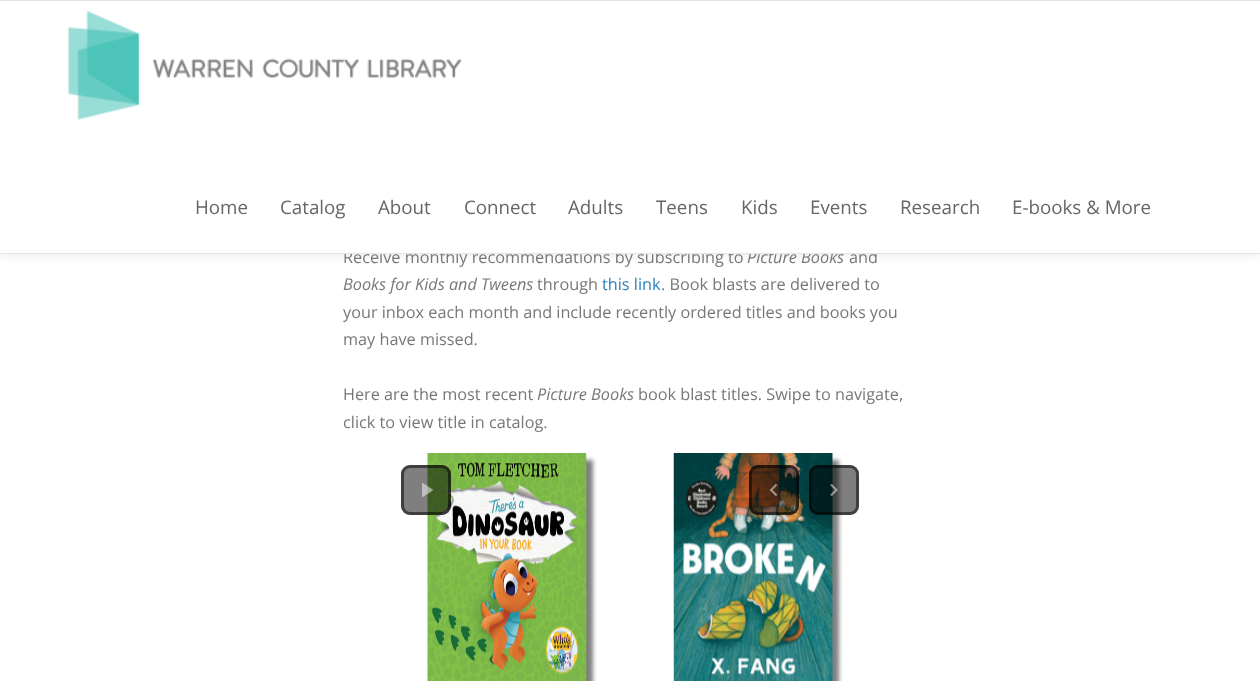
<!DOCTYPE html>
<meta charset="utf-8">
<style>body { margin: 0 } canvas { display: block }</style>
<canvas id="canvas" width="1260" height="681"></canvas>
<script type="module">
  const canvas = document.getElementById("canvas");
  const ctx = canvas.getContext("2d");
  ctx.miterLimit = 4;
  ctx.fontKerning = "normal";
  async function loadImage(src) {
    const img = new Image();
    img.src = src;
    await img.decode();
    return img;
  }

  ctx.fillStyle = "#ffffff";
  ctx.fillRect(0, 0, 1260, 681);
  ctx.fillStyle = "rgba(0, 0, 0, 0.07)";
  ctx.filter = "blur(4px)";
  ctx.beginPath();
  ctx.rect(0, 3, 1260, 253);
  ctx.fill();
  ctx.filter = "none";
  ctx.font = "16.25px Open Sans";
  ctx.fillStyle = "#777777";
  ctx.fillText("Receive monthly recommendations by subscribing to", 343, 263);
  ctx.font = "italic 16.25px Open Sans";
  ctx.fillText("Picture Books", 747, 263);
  ctx.font = "16.25px Open Sans";
  ctx.fillText("and", 849, 263);
  ctx.fillStyle = "#ffffff";
  ctx.fillRect(0, 1, 1260, 252);
  ctx.fillStyle = "#e5e5e5";
  ctx.fillRect(0, 0, 1260, 1);
  ctx.fillRect(0, 253, 1260, 1);
  ctx.drawImage(await loadImage("img1.png"), 67, 11, 395, 109);
  ctx.font = "18.75px Open Sans";
  ctx.fillStyle = "#666666";
  ctx.fillText("Home", 195, 214);
  ctx.fillText("Catalog", 280, 214);
  ctx.fillText("About", 378, 214);
  ctx.fillText("Connect", 464, 214);
  ctx.fillText("Adults", 568, 214);
  ctx.fillText("Teens", 656, 214);
  ctx.fillText("Kids", 741, 214);
  ctx.fillText("Events", 810, 214);
  ctx.fillText("Research", 900, 214);
  ctx.fillText("E-books & More", 1012, 214);
  ctx.font = "italic 16.25px Open Sans";
  ctx.fillStyle = "#777777";
  ctx.fillText("Books for Kids and Tweens", 343, 290);
  ctx.font = "16.25px Open Sans";
  ctx.fillText("through", 537, 290);
  ctx.fillStyle = "#2a80b9";
  ctx.fillText("this link", 602, 290);
  ctx.fillStyle = "#777777";
  ctx.fillText(". Book blasts are delivered to", 661, 290);
  ctx.fillText("your inbox each month and include recently ordered titles and books you", 343, 318);
  ctx.fillText("may have missed.", 343, 345);
  ctx.fillText("Here are the most recent", 343, 400);
  ctx.font = "italic 16.25px Open Sans";
  ctx.fillText("Picture Books", 537, 400);
  ctx.font = "16.25px Open Sans";
  ctx.fillText("book blast titles. Swipe to navigate,", 638, 400);
  ctx.fillText("click to view title in catalog.", 343, 428);
  ctx.fillStyle = "#808080";
  ctx.filter = "blur(2px)";
  ctx.beginPath();
  ctx.rect(434, 460, 159, 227);
  ctx.fill();
  ctx.filter = "none";
  ctx.drawImage(await loadImage("img2.png"), 427, 453, 160, 228);
  ctx.filter = "blur(2px)";
  ctx.beginPath();
  ctx.rect(680, 460, 159, 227);
  ctx.fill();
  ctx.filter = "none";
  ctx.drawImage(await loadImage("img3.png"), 673, 453, 160, 228);
  ctx.fillStyle = "rgba(0, 0, 0, 0.5)";
  ctx.beginPath();
  ctx.roundRect(401, 465, 50, 50, 9);
  ctx.fill();
  ctx.beginPath();
  ctx.roundRect(402.5, 466.5, 47, 47, 7.5);
  ctx.strokeStyle = "rgba(0, 0, 0, 0.5)";
  ctx.lineWidth = 3;
  ctx.stroke();
  ctx.fillStyle = "rgba(255, 255, 255, 0.5)";
  ctx.beginPath();
  ctx.moveTo(422, 482.5);
  ctx.lineTo(422, 497.5);
  ctx.lineTo(433.5, 490);
  ctx.closePath();
  ctx.fill();
  ctx.fillStyle = "rgba(0, 0, 0, 0.5)";
  ctx.beginPath();
  ctx.roundRect(749, 465, 50, 50, 9);
  ctx.fill();
  ctx.beginPath();
  ctx.roundRect(750.5, 466.5, 47, 47, 7.5);
  ctx.stroke();
  ctx.drawImage(await loadImage("img4.png"), 769, 483, 9, 14);
  ctx.beginPath();
  ctx.roundRect(809, 465, 50, 50, 9);
  ctx.fill();
  ctx.beginPath();
  ctx.roundRect(810.5, 466.5, 47, 47, 7.5);
  ctx.stroke();
  ctx.drawImage(await loadImage("img5.png"), 830, 483, 8, 14);
</script>
